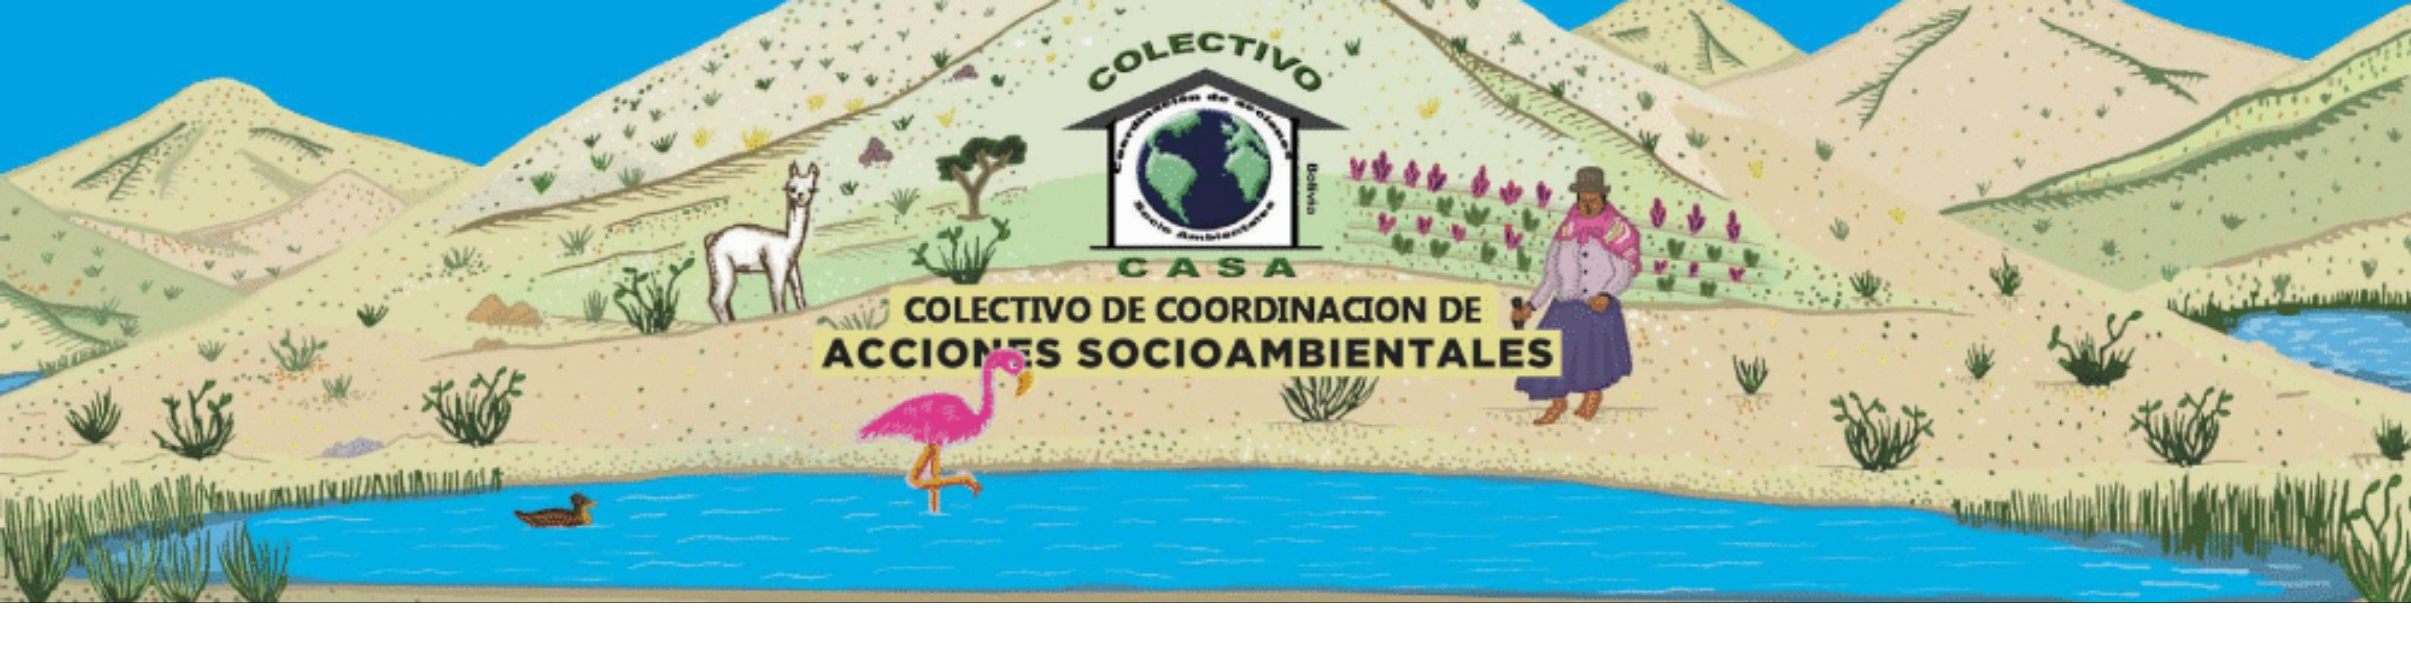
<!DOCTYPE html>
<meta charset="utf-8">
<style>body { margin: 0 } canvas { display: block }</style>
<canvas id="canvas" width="2411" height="667"></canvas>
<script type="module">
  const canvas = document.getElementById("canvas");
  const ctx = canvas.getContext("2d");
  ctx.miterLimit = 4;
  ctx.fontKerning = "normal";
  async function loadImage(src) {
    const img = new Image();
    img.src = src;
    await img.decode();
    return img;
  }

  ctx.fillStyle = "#000000";
  ctx.fillRect(0, 0, 2411, 667);
  ctx.drawImage(await loadImage("img1.png"), 0, 0, 2411, 603);
  ctx.fillStyle = "#ffffff";
  ctx.fillRect(0, 603, 2411, 64);
</script>
